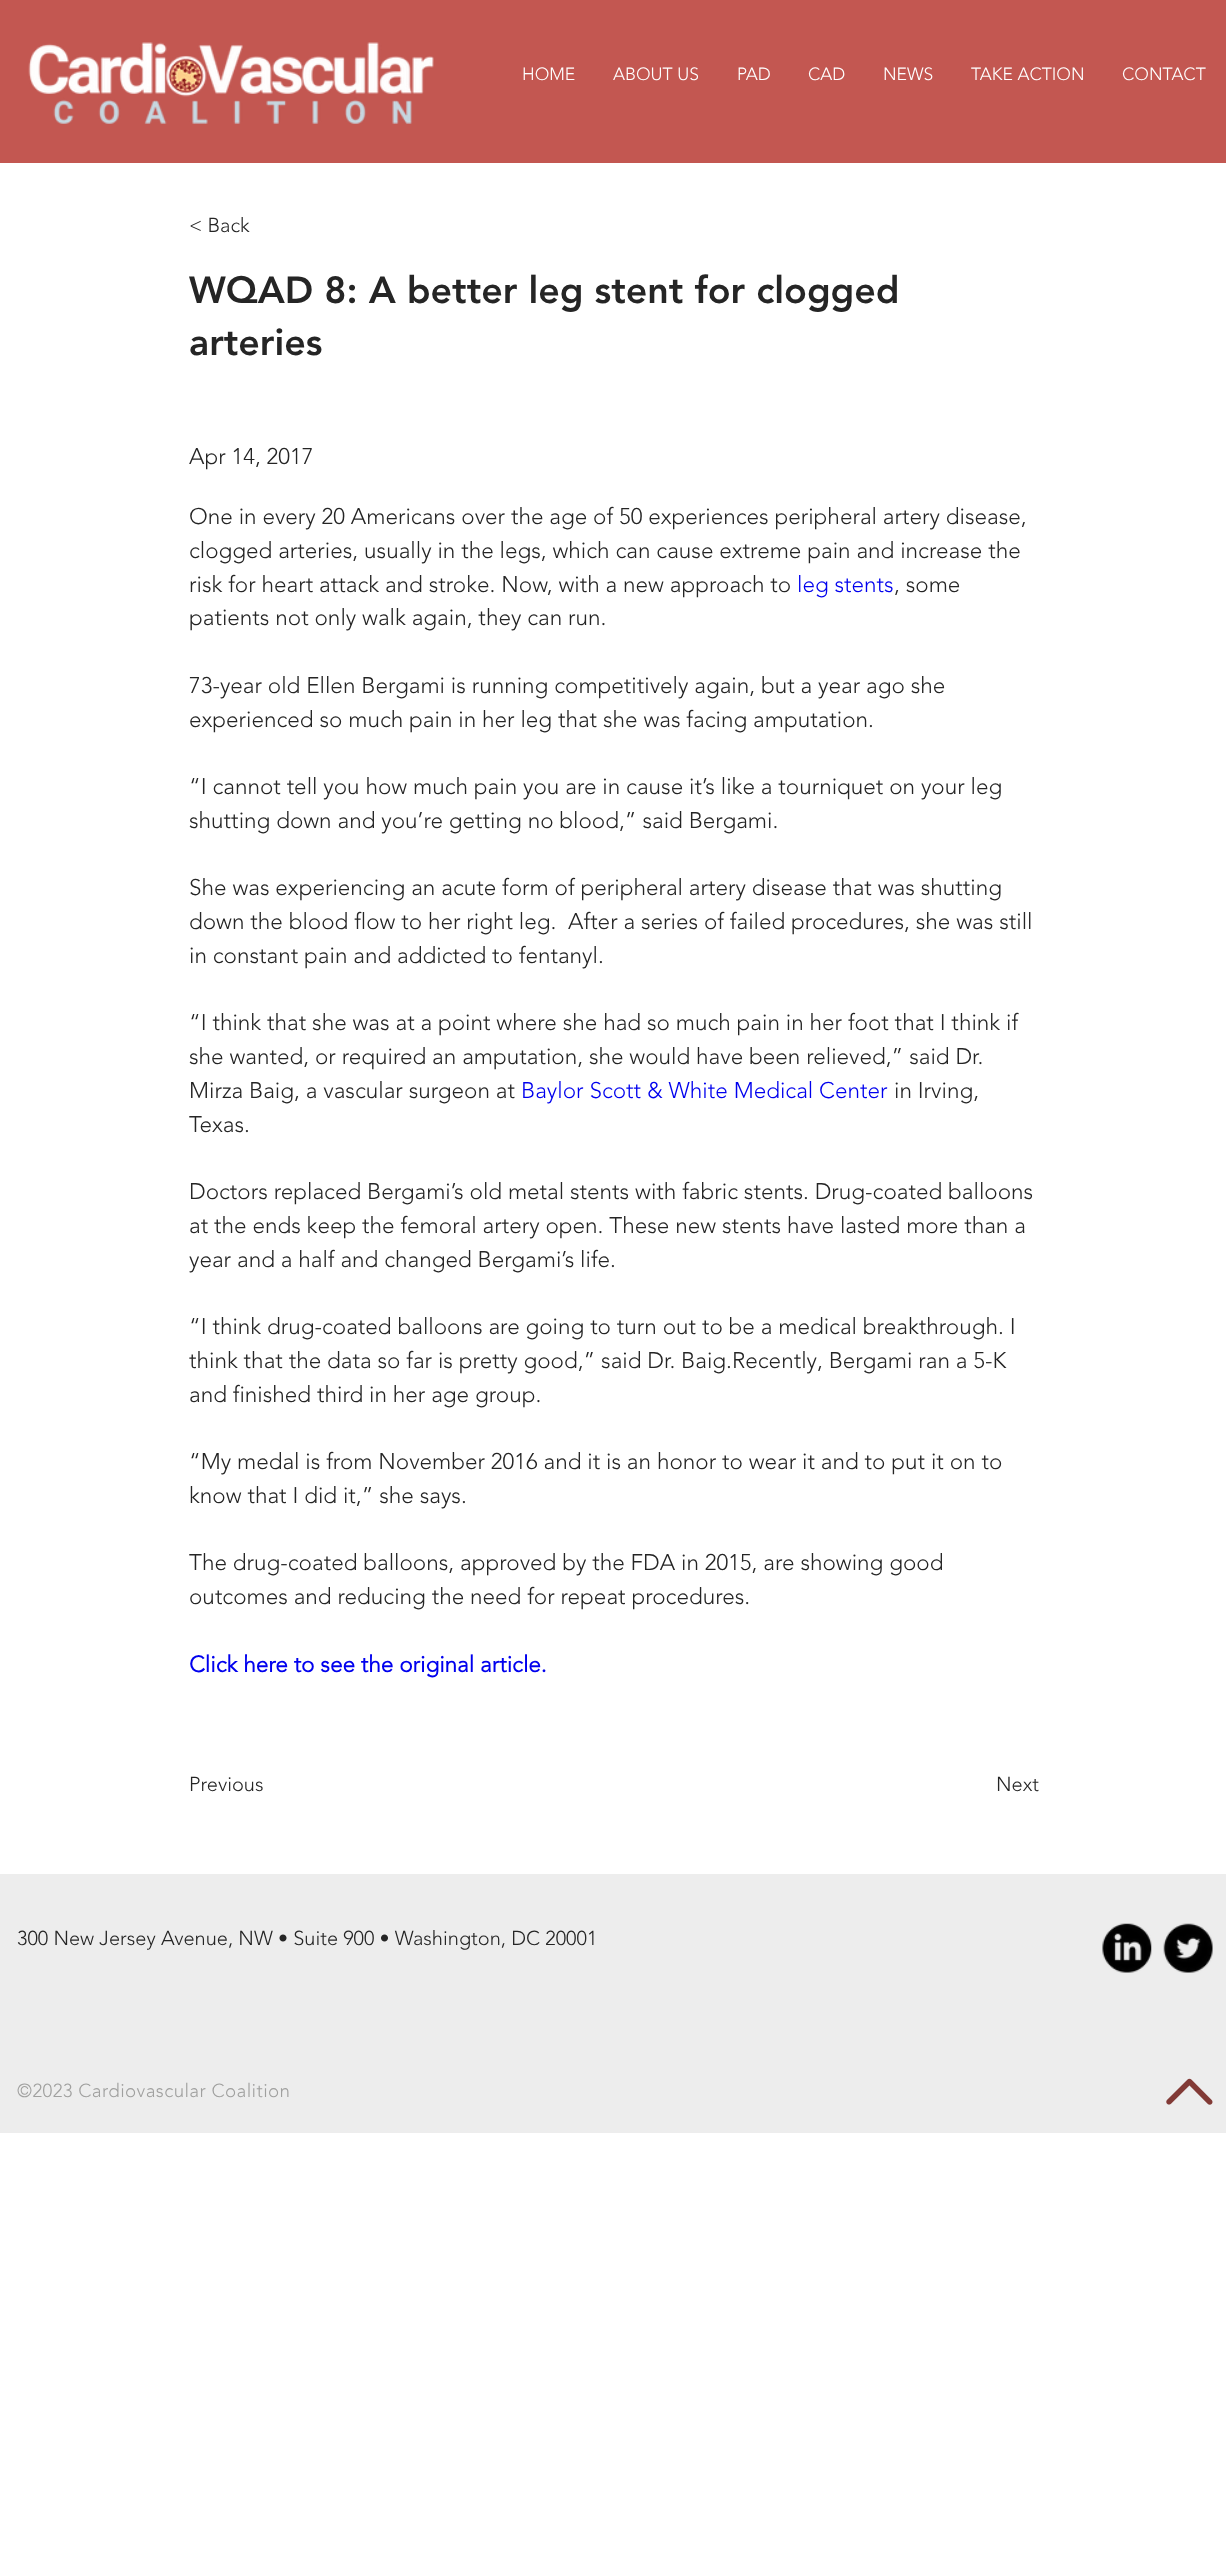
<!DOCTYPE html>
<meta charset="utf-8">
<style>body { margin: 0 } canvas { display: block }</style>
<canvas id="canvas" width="1226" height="2549"></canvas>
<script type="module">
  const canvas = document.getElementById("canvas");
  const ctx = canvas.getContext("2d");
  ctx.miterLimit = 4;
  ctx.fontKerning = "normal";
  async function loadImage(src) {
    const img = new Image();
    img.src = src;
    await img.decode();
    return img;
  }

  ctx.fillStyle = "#ffffff";
  ctx.fillRect(0, 0, 1226, 2549);
  ctx.fillStyle = "#c35751";
  ctx.fillRect(0, 0, 1226, 163);
  ctx.drawImage(await loadImage("img1.png"), 28, 42, 406, 82);
  ctx.font = "300 17.5px 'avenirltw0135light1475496'";
  ctx.fillStyle = "#ffffff";
  ctx.fillText("HOME", 522, 80);
  ctx.fillText("ABOUT US", 613, 80);
  ctx.fillText("PAD", 737, 80);
  ctx.fillText("CAD", 808, 80);
  ctx.fillText("NEWS", 883, 80);
  ctx.fillText("TAKE ACTION", 971, 80);
  ctx.fillText("CONTACT", 1122, 80);
  ctx.font = "300 20px 'avenirltw0135light1475496'";
  ctx.fillStyle = "#252525";
  ctx.fillText("< Back", 189, 232);
  ctx.font = "900 37.5px 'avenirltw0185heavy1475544'";
  ctx.fillText("WQAD 8: A better leg stent for clogged", 189, 303);
  ctx.fillText("arteries", 189, 355);
  ctx.font = "300 22.5px 'avenirltw0135light1475496'";
  ctx.fillText("Apr 14, 2017", 189, 464);
  ctx.fillText("One in every 20 Americans over the age of 50 experiences peripheral artery disease,", 189, 524);
  ctx.fillText("clogged arteries, usually in the legs, which can cause extreme pain and increase the", 189, 558);
  ctx.fillText("risk for heart attack and stroke. Now, with a new approach to", 189, 592);
  ctx.fillStyle = "#0000ee";
  ctx.fillText("leg stents", 797, 592);
  ctx.fillStyle = "#252525";
  ctx.fillText(", some", 894, 592);
  ctx.fillText("patients not only walk again, they can run.", 189, 625);
  ctx.fillText("73-year old Ellen Bergami is running competitively again, but a year ago she", 189, 693);
  ctx.fillText("experienced so much pain in her leg that she was facing amputation.", 189, 727);
  ctx.fillText("“I cannot tell you how much pain you are in cause it’s like a tourniquet on your leg", 189, 794);
  ctx.fillText("shutting down and you’re getting no blood,” said Bergami.", 189, 828);
  ctx.fillText("She was experiencing an acute form of peripheral artery disease that was shutting", 189, 895);
  ctx.fillText("down the blood flow to her right leg.  After a series of failed procedures, she was still", 189, 929);
  ctx.fillText("in constant pain and addicted to fentanyl.", 189, 963);
  ctx.fillText("“I think that she was at a point where she had so much pain in her foot that I think if", 189, 1030);
  ctx.fillText("she wanted, or required an amputation, she would have been relieved,” said Dr.", 189, 1064);
  ctx.fillText("Mirza Baig, a vascular surgeon at", 189, 1098);
  ctx.fillStyle = "#0000ee";
  ctx.fillText("Baylor Scott & White Medical Center", 521, 1098);
  ctx.fillStyle = "#252525";
  ctx.fillText("in Irving,", 894, 1098);
  ctx.fillText("Texas.", 189, 1132);
  ctx.fillText("Doctors replaced Bergami’s old metal stents with fabric stents. Drug-coated balloons", 189, 1199);
  ctx.fillText("at the ends keep the femoral artery open. These new stents have lasted more than a", 189, 1233);
  ctx.fillText("year and a half and changed Bergami’s life.", 189, 1267);
  ctx.fillText("“I think drug-coated balloons are going to turn out to be a medical breakthrough. I", 189, 1334);
  ctx.fillText("think that the data so far is pretty good,” said Dr. Baig.Recently, Bergami ran a 5-K", 189, 1368);
  ctx.fillText("and finished third in her age group.", 189, 1402);
  ctx.fillText("“My medal is from November 2016 and it is an honor to wear it and to put it on to", 189, 1469);
  ctx.fillText("know that I did it,” she says.", 189, 1503);
  ctx.fillText("The drug-coated balloons, approved by the FDA in 2015, are showing good", 189, 1570);
  ctx.fillText("outcomes and reducing the need for repeat procedures.", 189, 1604);
  ctx.font = "bold 22.5px 'avenirltw0135light1475496'";
  ctx.fillStyle = "#0000ee";
  ctx.fillText("Click here to see the original article.", 189, 1672);
  ctx.font = "300 20px 'avenirltw0135light1475496'";
  ctx.fillStyle = "#252525";
  ctx.fillText("Previous", 189, 1791);
  ctx.fillText("Next", 996, 1791);
  ctx.fillStyle = "#ededed";
  ctx.fillRect(0, 1874, 1226, 259);
  ctx.fillStyle = "#252525";
  ctx.fillText("300 New Jersey Avenue, NW • Suite 900 • Washington, DC 20001", 17, 1945);
  ctx.drawImage(await loadImage("img2.png"), 1102, 1923, 50, 50);
  ctx.drawImage(await loadImage("img3.png"), 1163, 1923, 50, 50);
  ctx.letterSpacing = "0.4px";
  ctx.font = "300 18.75px 'avenirltw0135light1475496'";
  ctx.fillStyle = "#a0a09f";
  ctx.fillText("©2023 Cardiovascular Coalition", 17, 2097);
  ctx.drawImage(await loadImage("img4.png"), 1166, 2078, 47, 27);
</script>
